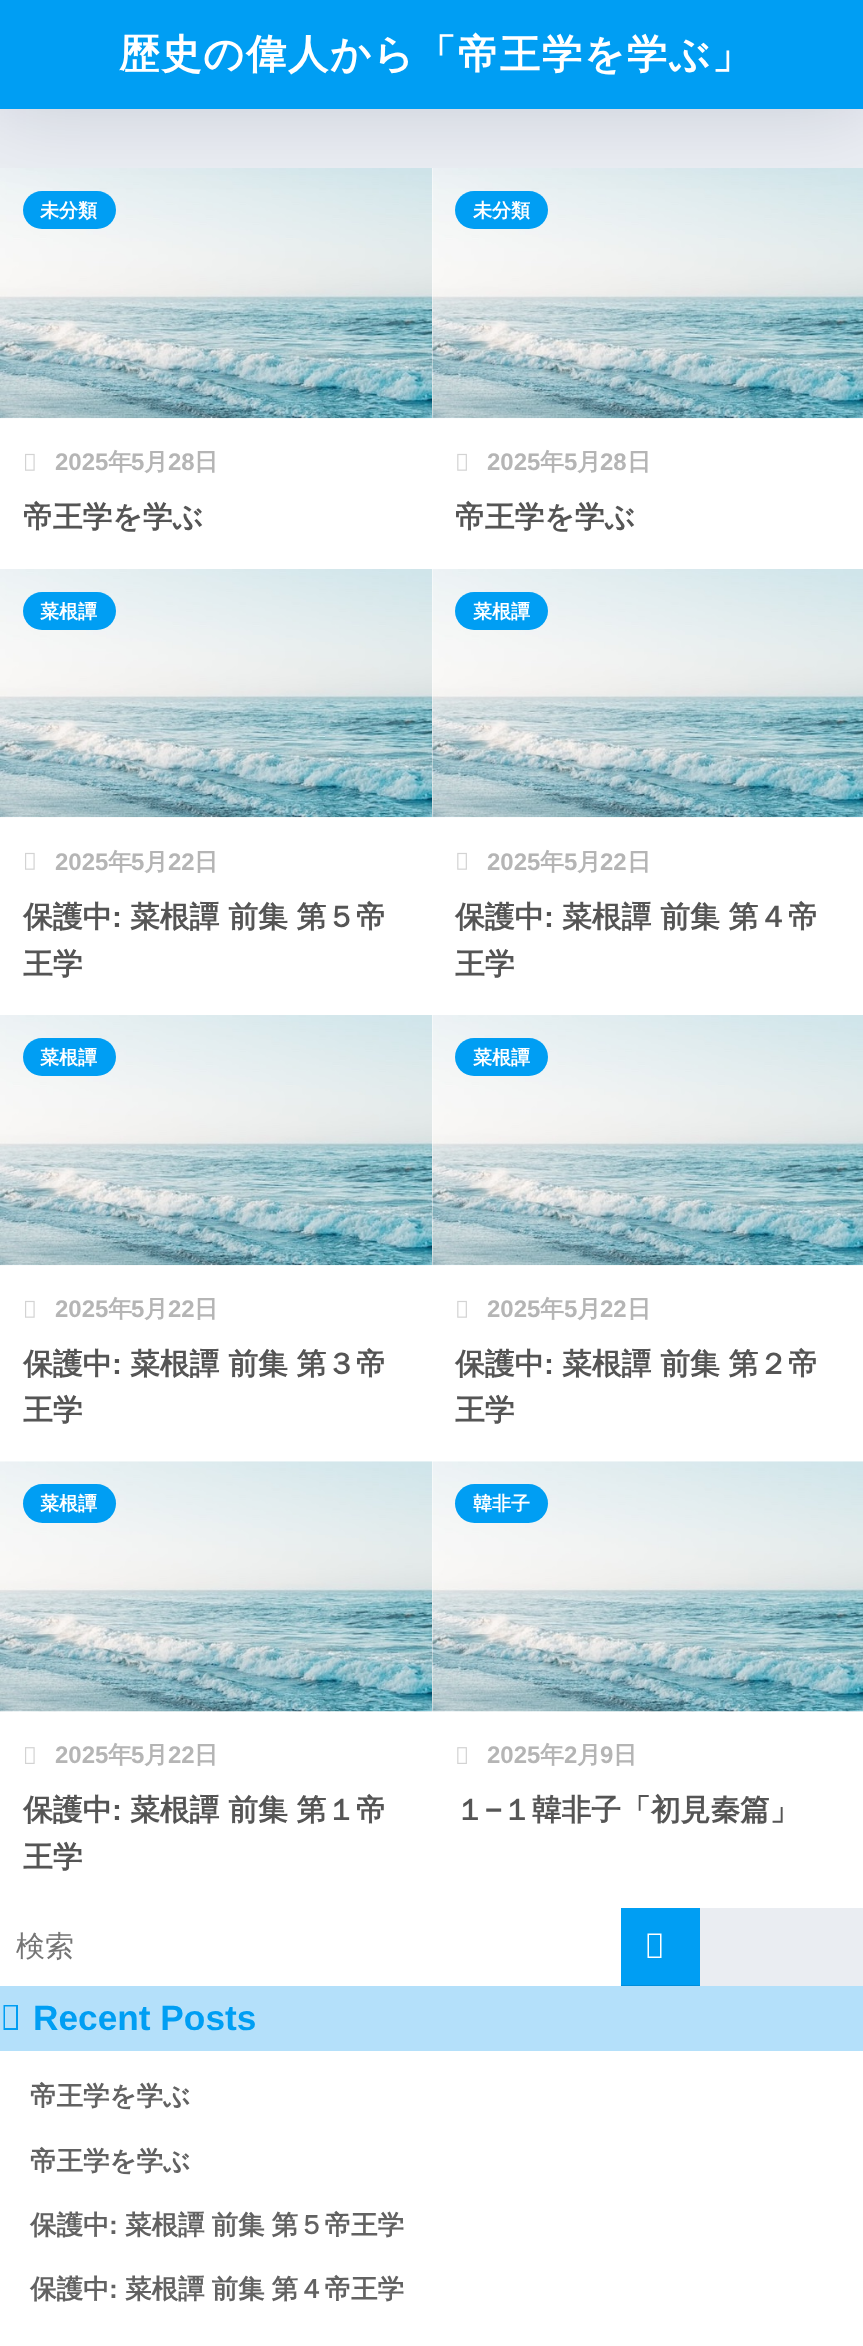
<!DOCTYPE html>
<meta charset="utf-8">
<style>body { margin: 0 } canvas { display: block }</style>
<canvas id="canvas" width="863" height="2346"></canvas>
<script type="module">
  const canvas = document.getElementById("canvas");
  const ctx = canvas.getContext("2d");
  ctx.miterLimit = 4;
  ctx.fontKerning = "normal";
  async function loadImage(src) {
    const img = new Image();
    img.src = src;
    await img.decode();
    return img;
  }

  ctx.fillStyle = "#eaedf2";
  ctx.fillRect(0, 0, 863, 2346);
  ctx.fillStyle = "#ffffff";
  ctx.fillRect(0, 418, 432, 151);
  ctx.drawImage(await loadImage("img1.png"), 0, 168, 432, 251);
  ctx.fillStyle = "#009ef3";
  ctx.beginPath();
  ctx.roundRect(23, 191, 93, 38, 19);
  ctx.fill();
  ctx.fillStyle = "#ffffff";
  ctx.fillRect(432, 168, 431, 1740);
  ctx.drawImage(await loadImage("img3.png"), 432, 168, 431, 251);
  ctx.fillStyle = "#009ef3";
  ctx.beginPath();
  ctx.roundRect(455, 191, 93, 38, 19);
  ctx.fill();
  ctx.fillStyle = "rgba(0, 12, 66, 0.15)";
  ctx.filter = "blur(39.5px)";
  ctx.beginPath();
  ctx.rect(0, 0, 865, 109);
  ctx.fill();
  ctx.filter = "none";
  ctx.fillStyle = "#009ef3";
  ctx.fillRect(0, 0, 863, 109);
  ctx.letterSpacing = "1.75px";
  ctx.font = "bold 40.25px WenQuanYi Zen Hei";
  ctx.fillStyle = "#ffffff";
  ctx.fillText("歴史の偉人から「帝王学を学ぶ」", 119, 68);
  ctx.letterSpacing = "0px";
  ctx.font = "bold 19px WenQuanYi Zen Hei";
  ctx.fillText("未分類", 40, 217);
  ctx.drawImage(await loadImage("img2.png"), 25, 453, 10, 18);
  ctx.font = "bold 24px Liberation Sans";
  ctx.fillStyle = "#b5b5b5";
  ctx.fillText("2025", 55, 470);
  ctx.font = "bold 24px WenQuanYi Zen Hei";
  ctx.fillText("年", 108, 470);
  ctx.font = "bold 24px Liberation Sans";
  ctx.fillText("5", 131, 470);
  ctx.font = "bold 24px WenQuanYi Zen Hei";
  ctx.fillText("月", 144, 470);
  ctx.font = "bold 24px Liberation Sans";
  ctx.fillText("28", 168, 470);
  ctx.font = "bold 24px WenQuanYi Zen Hei";
  ctx.fillText("日", 194, 470);
  ctx.font = "bold 29.75px WenQuanYi Zen Hei";
  ctx.fillStyle = "#555555";
  ctx.fillText("帝王学を学ぶ", 23, 527);
  ctx.font = "bold 19px WenQuanYi Zen Hei";
  ctx.fillStyle = "#ffffff";
  ctx.fillText("未分類", 473, 217);
  ctx.drawImage(await loadImage("img4.png"), 457, 453, 10, 18);
  ctx.font = "bold 24px Liberation Sans";
  ctx.fillStyle = "#b5b5b5";
  ctx.fillText("2025", 487, 470);
  ctx.font = "bold 24px WenQuanYi Zen Hei";
  ctx.fillText("年", 540, 470);
  ctx.font = "bold 24px Liberation Sans";
  ctx.fillText("5", 564, 470);
  ctx.font = "bold 24px WenQuanYi Zen Hei";
  ctx.fillText("月", 577, 470);
  ctx.font = "bold 24px Liberation Sans";
  ctx.fillText("28", 600, 470);
  ctx.font = "bold 24px WenQuanYi Zen Hei";
  ctx.fillText("日", 627, 470);
  ctx.font = "bold 29.75px WenQuanYi Zen Hei";
  ctx.fillStyle = "#555555";
  ctx.fillText("帝王学を学ぶ", 455, 527);
  ctx.fillStyle = "#ffffff";
  ctx.fillRect(0, 817, 432, 198);
  ctx.drawImage(await loadImage("img5.png"), 0, 569, 432, 249);
  ctx.fillStyle = "#009ef3";
  ctx.beginPath();
  ctx.roundRect(23, 592, 93, 38, 19);
  ctx.fill();
  ctx.font = "bold 19px WenQuanYi Zen Hei";
  ctx.fillStyle = "#ffffff";
  ctx.fillText("菜根譚", 40, 618);
  ctx.drawImage(await loadImage("img2.png"), 25, 852, 10, 18);
  ctx.font = "bold 24px Liberation Sans";
  ctx.fillStyle = "#b5b5b5";
  ctx.fillText("2025", 55, 870);
  ctx.font = "bold 24px WenQuanYi Zen Hei";
  ctx.fillText("年", 108, 870);
  ctx.font = "bold 24px Liberation Sans";
  ctx.fillText("5", 131, 870);
  ctx.font = "bold 24px WenQuanYi Zen Hei";
  ctx.fillText("月", 144, 870);
  ctx.font = "bold 24px Liberation Sans";
  ctx.fillText("22", 168, 870);
  ctx.font = "bold 24px WenQuanYi Zen Hei";
  ctx.fillText("日", 194, 870);
  ctx.font = "bold 29.75px WenQuanYi Zen Hei";
  ctx.fillStyle = "#555555";
  ctx.fillText("保護中", 23, 927);
  ctx.font = "bold 29.75px Liberation Sans";
  ctx.fillText(":", 112, 927);
  ctx.font = "bold 29.75px WenQuanYi Zen Hei";
  ctx.fillText("菜根譚 前集 第５帝", 130, 927);
  ctx.fillText("王学", 23, 974);
  ctx.drawImage(await loadImage("img6.png"), 432, 569, 431, 249);
  ctx.fillStyle = "#009ef3";
  ctx.beginPath();
  ctx.roundRect(455, 592, 93, 38, 19);
  ctx.fill();
  ctx.font = "bold 19px WenQuanYi Zen Hei";
  ctx.fillStyle = "#ffffff";
  ctx.fillText("菜根譚", 473, 618);
  ctx.drawImage(await loadImage("img4.png"), 457, 852, 10, 18);
  ctx.font = "bold 24px Liberation Sans";
  ctx.fillStyle = "#b5b5b5";
  ctx.fillText("2025", 487, 870);
  ctx.font = "bold 24px WenQuanYi Zen Hei";
  ctx.fillText("年", 540, 870);
  ctx.font = "bold 24px Liberation Sans";
  ctx.fillText("5", 564, 870);
  ctx.font = "bold 24px WenQuanYi Zen Hei";
  ctx.fillText("月", 577, 870);
  ctx.font = "bold 24px Liberation Sans";
  ctx.fillText("22", 600, 870);
  ctx.font = "bold 24px WenQuanYi Zen Hei";
  ctx.fillText("日", 627, 870);
  ctx.font = "bold 29.75px WenQuanYi Zen Hei";
  ctx.fillStyle = "#555555";
  ctx.fillText("保護中", 455, 927);
  ctx.font = "bold 29.75px Liberation Sans";
  ctx.fillText(":", 544, 927);
  ctx.font = "bold 29.75px WenQuanYi Zen Hei";
  ctx.fillText("菜根譚 前集 第４帝", 562, 927);
  ctx.fillText("王学", 455, 974);
  ctx.fillStyle = "#ffffff";
  ctx.fillRect(0, 1265, 432, 643);
  ctx.drawImage(await loadImage("img1.png"), 0, 1015, 432, 251);
  ctx.fillStyle = "#009ef3";
  ctx.beginPath();
  ctx.roundRect(23, 1038, 93, 38, 19);
  ctx.fill();
  ctx.font = "bold 19px WenQuanYi Zen Hei";
  ctx.fillStyle = "#ffffff";
  ctx.fillText("菜根譚", 40, 1064);
  ctx.drawImage(await loadImage("img2.png"), 25, 1300, 10, 18);
  ctx.font = "bold 24px Liberation Sans";
  ctx.fillStyle = "#b5b5b5";
  ctx.fillText("2025", 55, 1317);
  ctx.font = "bold 24px WenQuanYi Zen Hei";
  ctx.fillText("年", 108, 1317);
  ctx.font = "bold 24px Liberation Sans";
  ctx.fillText("5", 131, 1317);
  ctx.font = "bold 24px WenQuanYi Zen Hei";
  ctx.fillText("月", 144, 1317);
  ctx.font = "bold 24px Liberation Sans";
  ctx.fillText("22", 168, 1317);
  ctx.font = "bold 24px WenQuanYi Zen Hei";
  ctx.fillText("日", 194, 1317);
  ctx.font = "bold 29.75px WenQuanYi Zen Hei";
  ctx.fillStyle = "#555555";
  ctx.fillText("保護中", 23, 1374);
  ctx.font = "bold 29.75px Liberation Sans";
  ctx.fillText(":", 112, 1374);
  ctx.font = "bold 29.75px WenQuanYi Zen Hei";
  ctx.fillText("菜根譚 前集 第３帝", 130, 1374);
  ctx.fillText("王学", 23, 1420);
  ctx.drawImage(await loadImage("img3.png"), 432, 1015, 431, 251);
  ctx.fillStyle = "#009ef3";
  ctx.beginPath();
  ctx.roundRect(455, 1038, 93, 38, 19);
  ctx.fill();
  ctx.font = "bold 19px WenQuanYi Zen Hei";
  ctx.fillStyle = "#ffffff";
  ctx.fillText("菜根譚", 473, 1064);
  ctx.drawImage(await loadImage("img4.png"), 457, 1300, 10, 18);
  ctx.font = "bold 24px Liberation Sans";
  ctx.fillStyle = "#b5b5b5";
  ctx.fillText("2025", 487, 1317);
  ctx.font = "bold 24px WenQuanYi Zen Hei";
  ctx.fillText("年", 540, 1317);
  ctx.font = "bold 24px Liberation Sans";
  ctx.fillText("5", 564, 1317);
  ctx.font = "bold 24px WenQuanYi Zen Hei";
  ctx.fillText("月", 577, 1317);
  ctx.font = "bold 24px Liberation Sans";
  ctx.fillText("22", 600, 1317);
  ctx.font = "bold 24px WenQuanYi Zen Hei";
  ctx.fillText("日", 627, 1317);
  ctx.font = "bold 29.75px WenQuanYi Zen Hei";
  ctx.fillStyle = "#555555";
  ctx.fillText("保護中", 455, 1374);
  ctx.font = "bold 29.75px Liberation Sans";
  ctx.fillText(":", 544, 1374);
  ctx.font = "bold 29.75px WenQuanYi Zen Hei";
  ctx.fillText("菜根譚 前集 第２帝", 562, 1374);
  ctx.fillText("王学", 455, 1420);
  ctx.drawImage(await loadImage("img7.png"), 0, 1461, 432, 251);
  ctx.fillStyle = "#009ef3";
  ctx.beginPath();
  ctx.roundRect(23, 1484, 93, 39, 19.5);
  ctx.fill();
  ctx.font = "bold 19px WenQuanYi Zen Hei";
  ctx.fillStyle = "#ffffff";
  ctx.fillText("菜根譚", 40, 1510);
  ctx.drawImage(await loadImage("img8.png"), 25, 1747, 10, 17);
  ctx.font = "bold 24px Liberation Sans";
  ctx.fillStyle = "#b5b5b5";
  ctx.fillText("2025", 55, 1763);
  ctx.font = "bold 24px WenQuanYi Zen Hei";
  ctx.fillText("年", 108, 1763);
  ctx.font = "bold 24px Liberation Sans";
  ctx.fillText("5", 131, 1763);
  ctx.font = "bold 24px WenQuanYi Zen Hei";
  ctx.fillText("月", 144, 1763);
  ctx.font = "bold 24px Liberation Sans";
  ctx.fillText("22", 168, 1763);
  ctx.font = "bold 24px WenQuanYi Zen Hei";
  ctx.fillText("日", 194, 1763);
  ctx.font = "bold 29.75px WenQuanYi Zen Hei";
  ctx.fillStyle = "#555555";
  ctx.fillText("保護中", 23, 1820);
  ctx.font = "bold 29.75px Liberation Sans";
  ctx.fillText(":", 112, 1820);
  ctx.font = "bold 29.75px WenQuanYi Zen Hei";
  ctx.fillText("菜根譚 前集 第１帝", 130, 1820);
  ctx.fillText("王学", 23, 1867);
  ctx.drawImage(await loadImage("img9.png"), 432, 1461, 431, 251);
  ctx.fillStyle = "#009ef3";
  ctx.beginPath();
  ctx.roundRect(455, 1484, 93, 39, 19.5);
  ctx.fill();
  ctx.font = "bold 19px WenQuanYi Zen Hei";
  ctx.fillStyle = "#ffffff";
  ctx.fillText("韓非子", 473, 1510);
  ctx.drawImage(await loadImage("img10.png"), 457, 1747, 10, 17);
  ctx.font = "bold 24px Liberation Sans";
  ctx.fillStyle = "#b5b5b5";
  ctx.fillText("2025", 487, 1763);
  ctx.font = "bold 24px WenQuanYi Zen Hei";
  ctx.fillText("年", 540, 1763);
  ctx.font = "bold 24px Liberation Sans";
  ctx.fillText("2", 564, 1763);
  ctx.font = "bold 24px WenQuanYi Zen Hei";
  ctx.fillText("月", 577, 1763);
  ctx.font = "bold 24px Liberation Sans";
  ctx.fillText("9", 600, 1763);
  ctx.font = "bold 24px WenQuanYi Zen Hei";
  ctx.fillText("日", 613, 1763);
  ctx.font = "bold 29.75px WenQuanYi Zen Hei";
  ctx.fillStyle = "#555555";
  ctx.fillText("１", 455, 1820);
  ctx.font = "bold 29.75px Liberation Sans";
  ctx.fillText("−", 485, 1820);
  ctx.font = "bold 29.75px WenQuanYi Zen Hei";
  ctx.fillText("１韓非子「初見秦篇」", 502, 1820);
  ctx.fillStyle = "#ffffff";
  ctx.fillRect(0, 1908, 621, 78);
  ctx.font = "500 29px WenQuanYi Zen Hei";
  ctx.fillStyle = "#757575";
  ctx.fillText("検索", 16, 1956);
  ctx.fillStyle = "#009ef3";
  ctx.fillRect(621, 1908, 79, 77);
  ctx.fillStyle = "#008edb";
  ctx.fillRect(621, 1985, 79, 1);
  ctx.fillStyle = "#ffffff";
  ctx.beginPath();
  ctx.moveTo(647.5, 1958);
  ctx.lineTo(647.5, 1933.5);
  ctx.lineTo(661.5, 1933.5);
  ctx.lineTo(661.5, 1958);
  ctx.closePath();
  ctx.moveTo(649, 1956.5);
  ctx.lineTo(660, 1956.5);
  ctx.lineTo(660, 1935);
  ctx.lineTo(649, 1935);
  ctx.closePath();
  ctx.fill();
  ctx.fillRect(0, 2051, 863, 295);
  ctx.fillStyle = "#b4e0fa";
  ctx.fillRect(0, 1986, 863, 65);
  ctx.fillStyle = "#009ef3";
  ctx.beginPath();
  ctx.moveTo(3.5, 2030);
  ctx.lineTo(3.5, 2005);
  ctx.lineTo(18, 2005);
  ctx.lineTo(18, 2030);
  ctx.closePath();
  ctx.moveTo(5, 2028);
  ctx.lineTo(16, 2028);
  ctx.lineTo(16, 2006.5);
  ctx.lineTo(5, 2006.5);
  ctx.closePath();
  ctx.fill();
  ctx.font = "bold 35.25px Liberation Sans";
  ctx.fillText("Recent Posts", 33, 2030);
  ctx.font = "bold 26.5px WenQuanYi Zen Hei";
  ctx.fillStyle = "#626262";
  ctx.fillText("帝王学を学ぶ", 30, 2105);
  ctx.fillText("帝王学を学ぶ", 30, 2170);
  ctx.fillText("保護中", 30, 2234);
  ctx.font = "bold 26.5px Liberation Sans";
  ctx.fillText(":", 109, 2234);
  ctx.wordSpacing = "-1px";
  ctx.font = "bold 26.5px WenQuanYi Zen Hei";
  ctx.fillText("菜根譚 前集 第５帝王学", 125, 2234);
  ctx.wordSpacing = "0px";
  ctx.fillText("保護中", 30, 2298);
  ctx.font = "bold 26.5px Liberation Sans";
  ctx.fillText(":", 109, 2298);
  ctx.wordSpacing = "-1px";
  ctx.font = "bold 26.5px WenQuanYi Zen Hei";
  ctx.fillText("菜根譚 前集 第４帝王学", 125, 2298);
</script>
